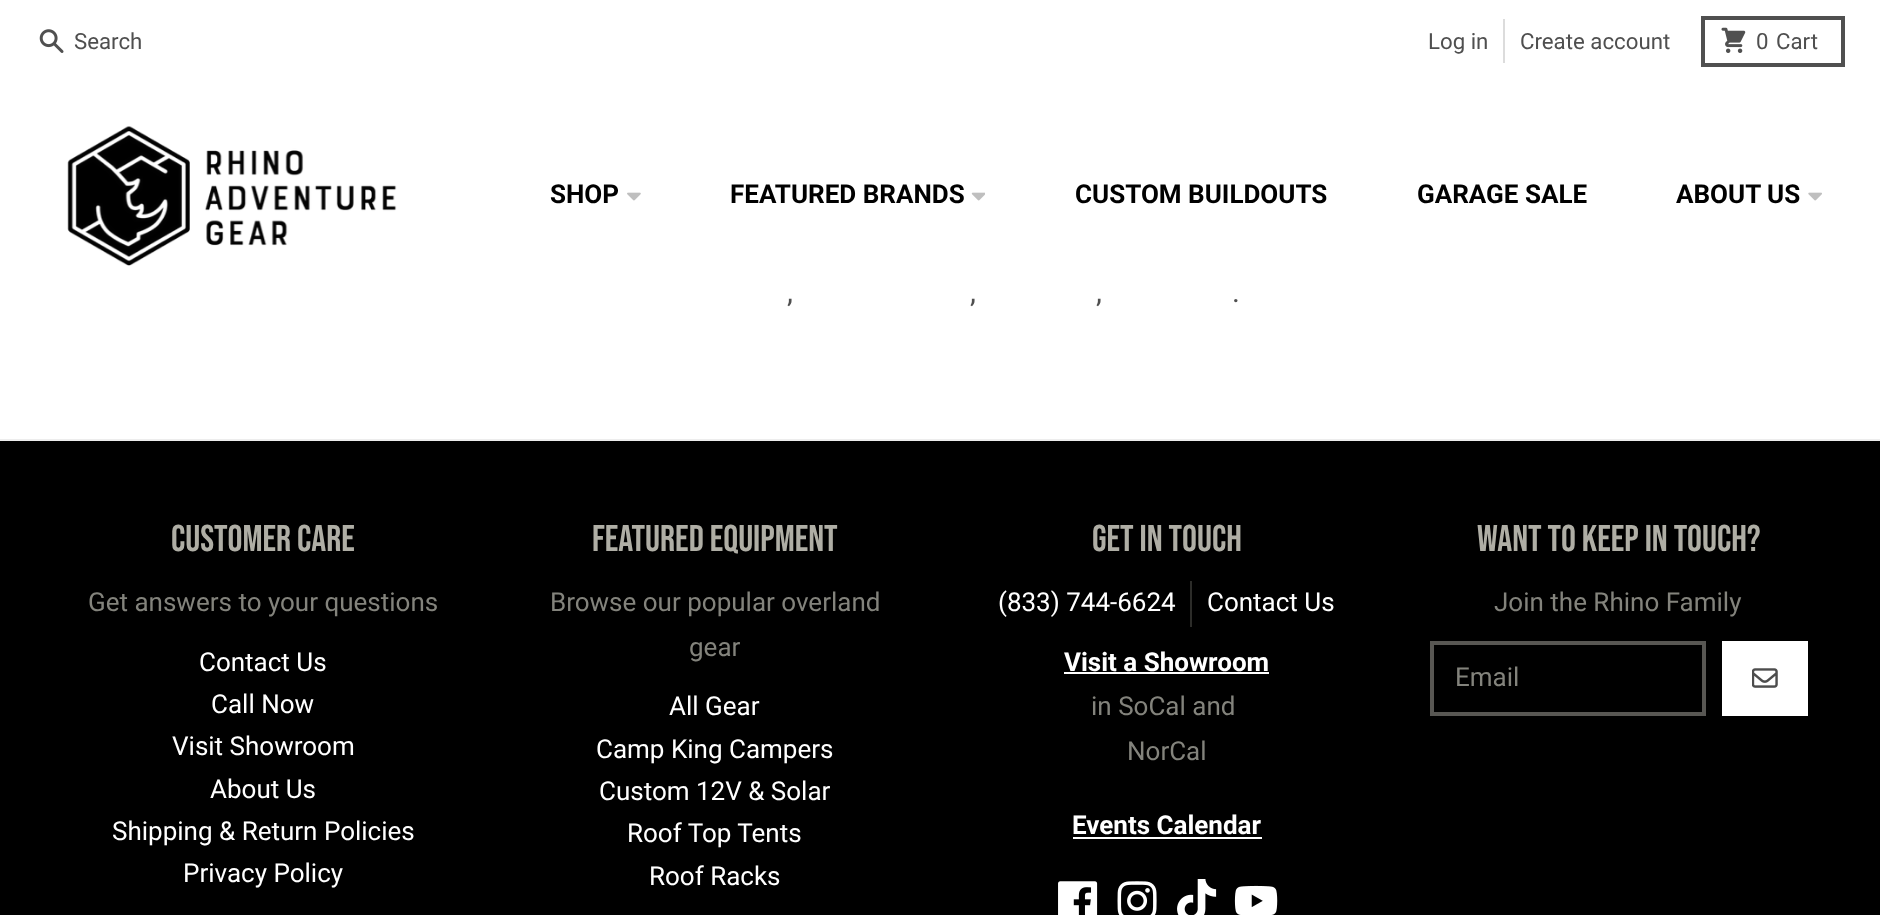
<!DOCTYPE html>
<meta charset="utf-8">
<style>body { margin: 0 } canvas { display: block }</style>
<canvas id="canvas" width="1880" height="915"></canvas>
<script type="module">
  const canvas = document.getElementById("canvas");
  const ctx = canvas.getContext("2d");
  ctx.miterLimit = 4;
  ctx.fontKerning = "normal";
  async function loadImage(src) {
    const img = new Image();
    img.src = src;
    await img.decode();
    return img;
  }

  ctx.fillStyle = "#000000";
  ctx.fillRect(0, 0, 1880, 915);
  ctx.fillStyle = "#ffffff";
  ctx.fillRect(0, 0, 1880, 439);
  ctx.drawImage(await loadImage("img1.png"), 39, 29, 25, 24);
  ctx.font = "22.25px Roboto";
  ctx.fillStyle = "#4f4f4f";
  ctx.fillText("Search", 74, 49);
  ctx.fillText("Log in", 1428, 49);
  ctx.fillStyle = "#dcdcdc";
  ctx.fillRect(1503, 19, 2, 44);
  ctx.fillStyle = "#4f4f4f";
  ctx.fillText("Create account", 1520, 49);
  ctx.strokeStyle = "#505050";
  ctx.lineWidth = 4;
  ctx.strokeRect(1703, 18, 140, 47);
  ctx.drawImage(await loadImage("img2.png"), 1721, 27, 25, 26);
  ctx.fillText("0", 1756, 49);
  ctx.fillText("Cart", 1776, 49);
  ctx.drawImage(await loadImage("img3.png"), 67, 126, 330, 140);
  ctx.font = "bold 26px Roboto";
  ctx.fillStyle = "#000000";
  ctx.fillText("SHOP", 550, 203);
  ctx.drawImage(await loadImage("img4.png"), 627, 192, 14, 9);
  ctx.fillText("FEATURED BRANDS", 730, 203);
  ctx.drawImage(await loadImage("img5.png"), 971, 192, 14, 9);
  ctx.fillText("CUSTOM BUILDOUTS", 1075, 203);
  ctx.fillText("GARAGE SALE", 1417, 203);
  ctx.fillText("ABOUT US", 1676, 203);
  ctx.drawImage(await loadImage("img6.png"), 1808, 192, 14, 9);
  ctx.fillStyle = "#ededed";
  ctx.fillRect(0, 439, 1880, 2);
  ctx.font = "30px Roboto";
  ctx.fillStyle = "#4f4f4f";
  ctx.fillText(",", 787, 302);
  ctx.fillText(",", 970, 302);
  ctx.fillText(",", 1096, 302);
  ctx.fillText(".", 1232, 302);
  ctx.font = "37.25px Bebas Neue";
  ctx.fillStyle = "#afaea5";
  ctx.fillText("CUSTOMER CARE", 171, 551);
  ctx.font = "26px Roboto";
  ctx.fillStyle = "#83837c";
  ctx.fillText("Get answers to your questions", 88, 611);
  ctx.fillStyle = "#ffffff";
  ctx.fillText("Contact Us", 199, 671);
  ctx.fillText("Call Now", 211, 713);
  ctx.fillText("Visit Showroom", 172, 755);
  ctx.fillText("About Us", 210, 798);
  ctx.fillText("Shipping & Return Policies", 112, 840);
  ctx.fillText("Privacy Policy", 183, 882);
  ctx.font = "37.25px Bebas Neue";
  ctx.fillStyle = "#afaea5";
  ctx.fillText("FEATURED EQUIPMENT", 592, 551);
  ctx.font = "26px Roboto";
  ctx.fillStyle = "#83837c";
  ctx.fillText("Browse our popular overland", 550, 611);
  ctx.fillText("gear", 689, 656);
  ctx.fillStyle = "#ffffff";
  ctx.fillText("All Gear", 669, 715);
  ctx.fillText("Camp King Campers", 596, 758);
  ctx.fillText("Custom 12V & Solar", 599, 800);
  ctx.fillText("Roof Top Tents", 627, 842);
  ctx.fillText("Roof Racks", 649, 885);
  ctx.font = "37.25px Bebas Neue";
  ctx.fillStyle = "#afaea5";
  ctx.fillText("GET IN TOUCH", 1092, 551);
  ctx.font = "26px Roboto";
  ctx.fillStyle = "#ffffff";
  ctx.fillText("(833) 744-6624", 998, 611);
  ctx.fillStyle = "#2c2c29";
  ctx.fillRect(1190, 581, 2, 46);
  ctx.fillStyle = "#ffffff";
  ctx.fillText("Contact Us", 1207, 611);
  ctx.font = "bold 26px Roboto";
  ctx.fillText("Visit a Showroom", 1064, 671);
  ctx.fillRect(1064, 672, 205, 2);
  ctx.font = "26px Roboto";
  ctx.fillStyle = "#83837c";
  ctx.fillText("in SoCal and", 1091, 715);
  ctx.fillText("NorCal", 1127, 760);
  ctx.font = "bold 26px Roboto";
  ctx.fillStyle = "#ffffff";
  ctx.fillText("Events Calendar", 1072, 834);
  ctx.fillRect(1073, 837, 189, 2);
  ctx.drawImage(await loadImage("img7.png"), 1058, 881, 40, 34);
  ctx.drawImage(await loadImage("img8.png"), 1117, 881, 40, 34);
  ctx.drawImage(await loadImage("img9.png"), 1177, 879, 40, 36);
  ctx.drawImage(await loadImage("img10.png"), 1234, 885, 44, 30);
  ctx.font = "37.25px Bebas Neue";
  ctx.fillStyle = "#afaea5";
  ctx.fillText("WANT TO KEEP IN TOUCH?", 1477, 551);
  ctx.font = "26px Roboto";
  ctx.fillStyle = "#83837c";
  ctx.fillText("Join the Rhino Family", 1494, 611);
  ctx.strokeStyle = "#585753";
  ctx.strokeRect(1432, 643, 272, 71);
  ctx.fillText("Email", 1455, 686);
  ctx.fillStyle = "#ffffff";
  ctx.fillRect(1722, 641, 86, 75);
  ctx.drawImage(await loadImage("img11.png"), 1752, 668, 26, 20);
</script>
